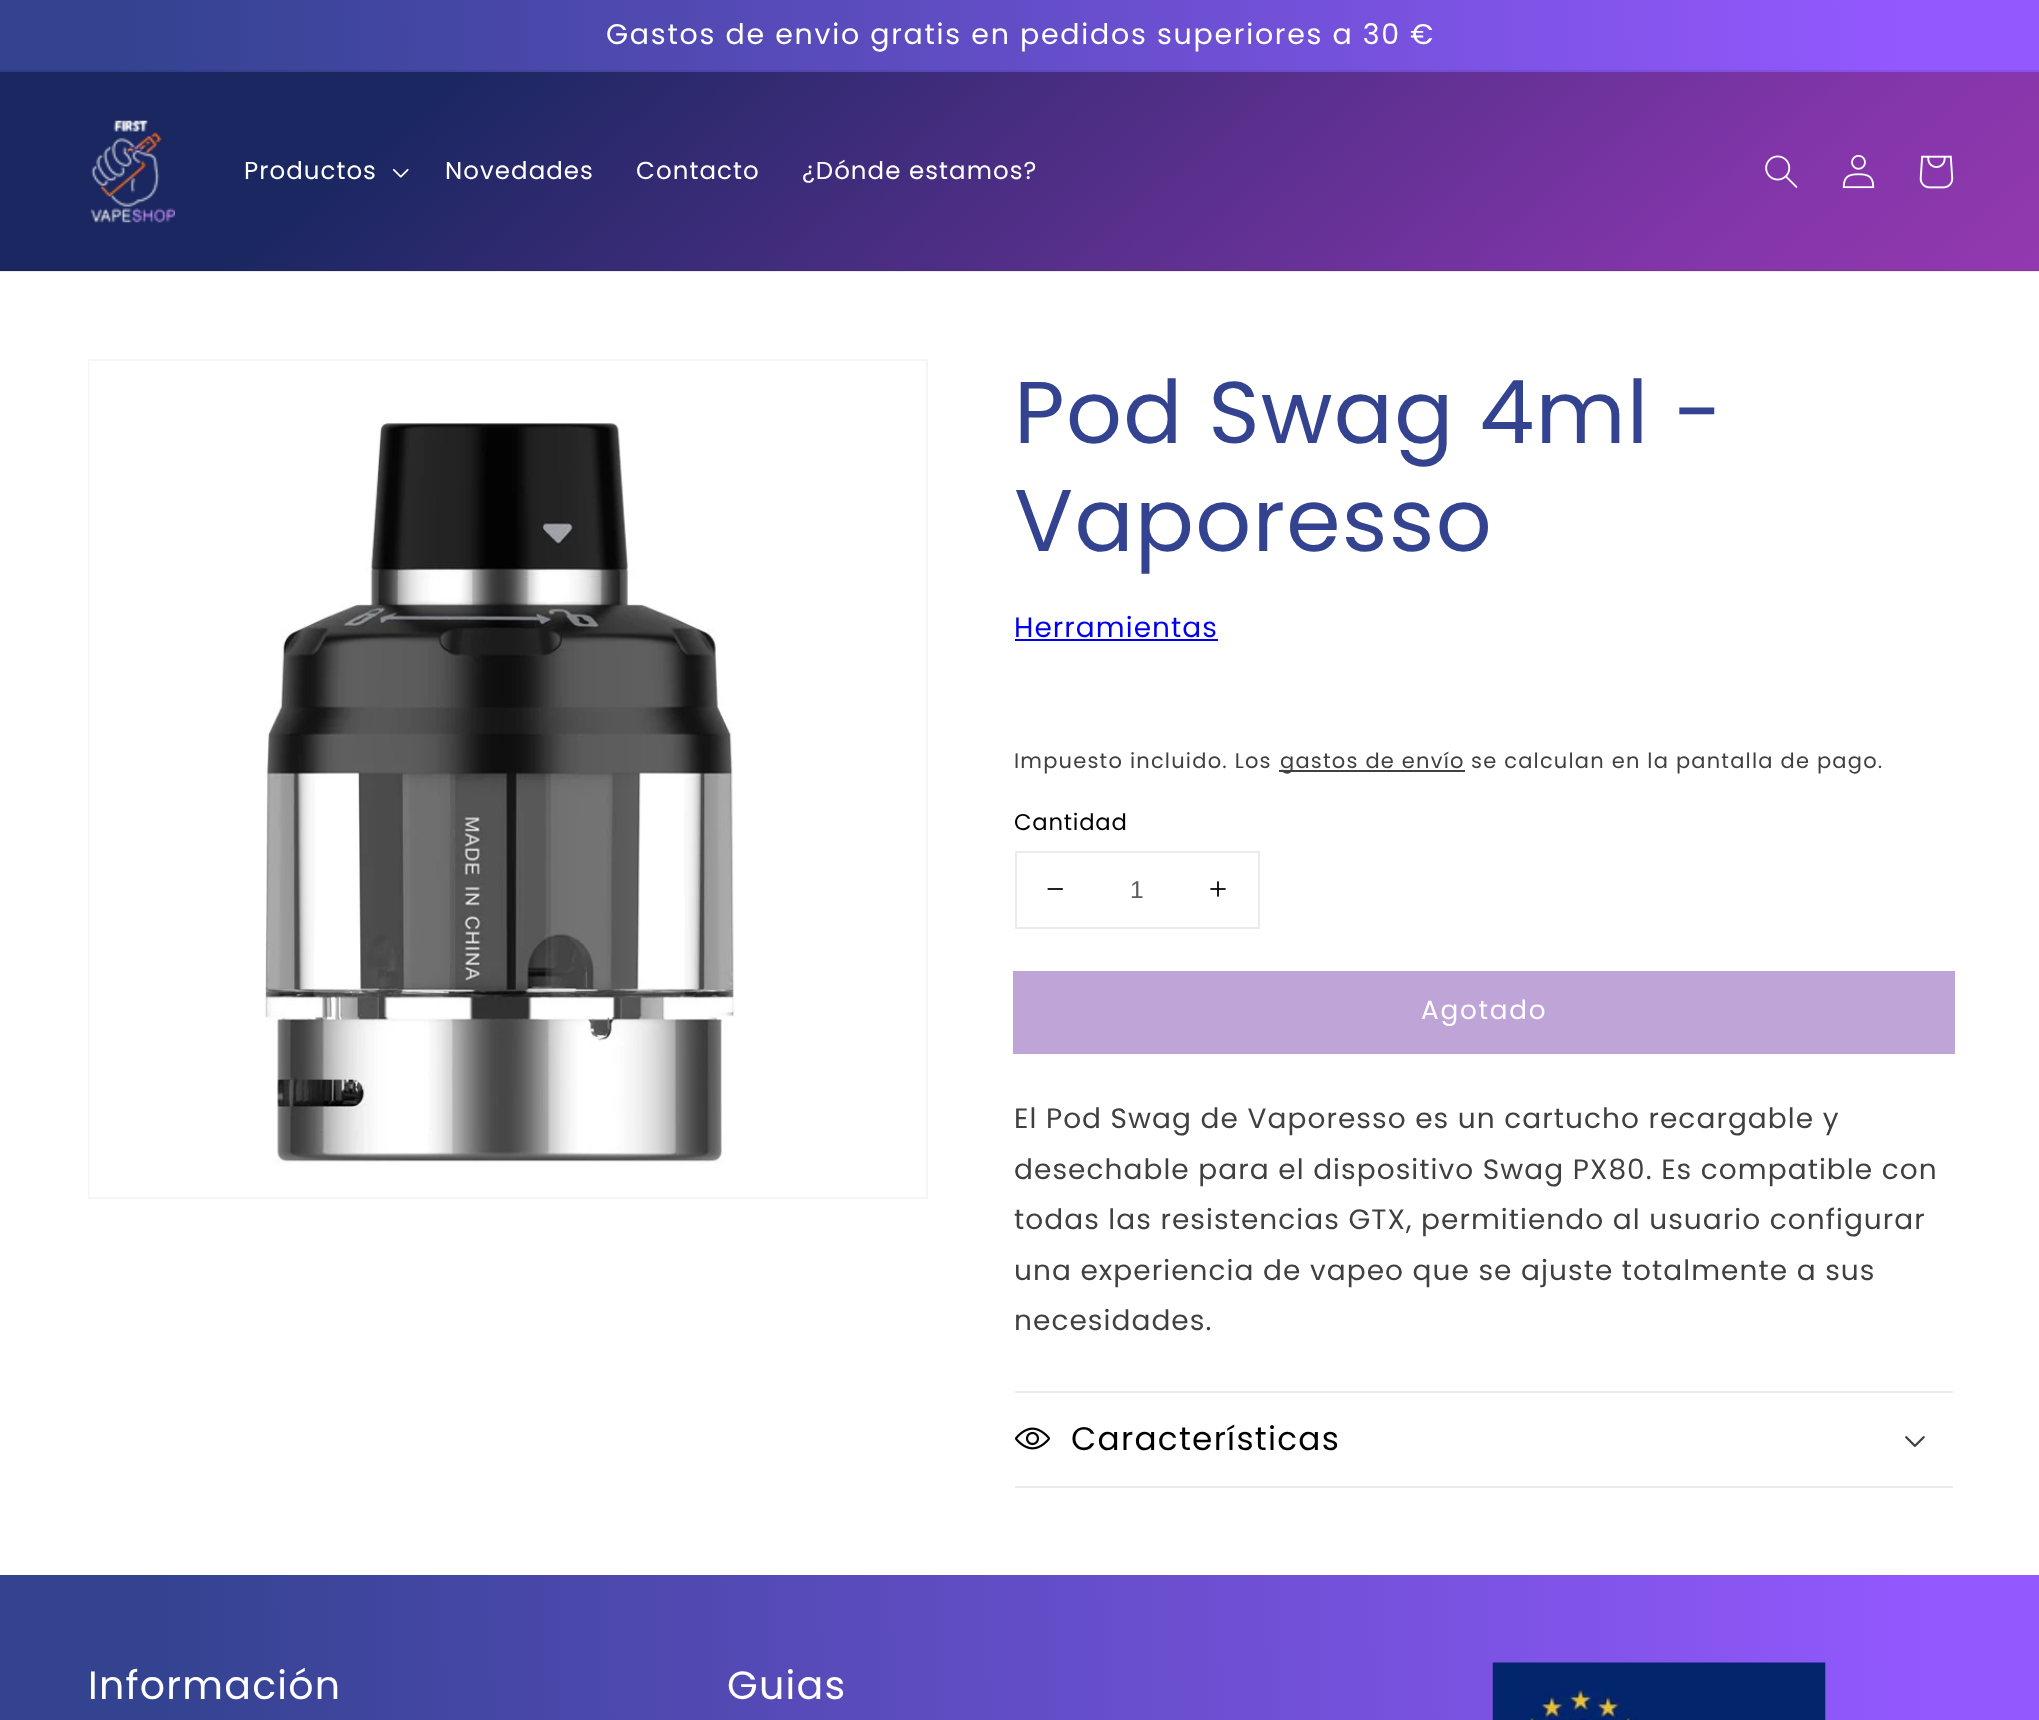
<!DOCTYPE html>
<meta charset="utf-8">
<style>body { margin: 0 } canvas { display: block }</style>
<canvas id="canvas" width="2039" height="1720"></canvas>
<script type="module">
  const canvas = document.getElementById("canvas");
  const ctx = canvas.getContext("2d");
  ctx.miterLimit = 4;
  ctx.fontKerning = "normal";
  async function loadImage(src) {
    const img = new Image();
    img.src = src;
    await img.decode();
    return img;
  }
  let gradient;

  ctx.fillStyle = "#ffffff";
  ctx.fillRect(0, 0, 2039, 1720);
  ctx.fillStyle = "#ebebeb";
  ctx.fillRect(0, 271, 2039, 1);
  gradient = ctx.createLinearGradient(-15, 878, 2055, 842);
  gradient.addColorStop(0.07, "#334390");
  gradient.addColorStop(0.94, "#9458ff");
  ctx.fillStyle = gradient;
  ctx.fillRect(0, 0, 2039, 70);
  gradient = ctx.createLinearGradient(-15, 878, 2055, 842);
  gradient.addColorStop(0.07, "#2f3e84");
  gradient.addColorStop(0.94, "#8851eb");
  ctx.fillStyle = gradient;
  ctx.fillRect(0, 70, 2039, 2);
  ctx.letterSpacing = "1.75px";
  ctx.font = "28.45px Poppins";
  ctx.fillStyle = "#ffffff";
  ctx.fillText("Gastos de envio gratis en pedidos superiores a 30 €", 606, 44);
  gradient = ctx.createLinearGradient(1865, 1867, 175, -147);
  gradient.addColorStop(0.13, "#cb44c2");
  gradient.addColorStop(0.52, "#8135a9");
  gradient.addColorStop(0.87, "#1a2761");
  ctx.fillStyle = gradient;
  ctx.fillRect(0, 72, 2039, 198);
  gradient = ctx.createLinearGradient(1865, 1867, 175, -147);
  gradient.addColorStop(0.13, "#bb3fb2");
  gradient.addColorStop(0.52, "#77319b");
  gradient.addColorStop(0.87, "#182459");
  ctx.fillStyle = gradient;
  ctx.fillRect(0, 270, 2039, 1);
  ctx.drawImage(await loadImage("img1.png"), 90, 120, 85, 103);
  ctx.letterSpacing = "1.05px";
  ctx.font = "24.5px Poppins";
  ctx.fillStyle = "#ffffff";
  ctx.fillText("Productos", 244, 179);
  ctx.drawImage(await loadImage("img2.png"), 392, 168, 17, 10);
  ctx.fillText("Novedades", 445, 179);
  ctx.fillText("Contacto", 636, 179);
  ctx.fillText("¿Dónde estamos?", 802, 179);
  ctx.drawImage(await loadImage("img3.png"), 1765, 155, 33, 33);
  ctx.drawImage(await loadImage("img4.png"), 1842, 154, 33, 35);
  ctx.drawImage(await loadImage("img5.png"), 1919, 155, 35, 34);
  ctx.strokeStyle = "#f5f5f5";
  ctx.lineWidth = 2;
  ctx.strokeRect(89, 360, 838, 838);
  ctx.drawImage(await loadImage("img6.png"), 89, 361, 646, 836);
  ctx.letterSpacing = "1.25px";
  ctx.font = "87.5px Poppins";
  ctx.fillStyle = "#334390";
  ctx.fillText("Pod Swag 4ml -", 1014, 443);
  ctx.fillText("Vaporesso", 1014, 551);
  ctx.letterSpacing = "1.05px";
  ctx.font = "28px Poppins";
  ctx.fillStyle = "#0000ee";
  ctx.fillText("Herramientas", 1014, 637);
  ctx.fillRect(1015, 639, 203, 2);
  ctx.letterSpacing = "1.2px";
  ctx.font = "21px Poppins";
  ctx.fillStyle = "#404040";
  ctx.fillText("Impuesto incluido. Los", 1014, 768);
  ctx.fillRect(1279, 770, 186, 2);
  ctx.fillText("gastos de envío", 1280, 768);
  ctx.fillText("se calculan en la pantalla de pago.", 1471, 768);
  ctx.letterSpacing = "0.75px";
  ctx.font = "22.75px Poppins";
  ctx.fillStyle = "#000000";
  ctx.fillText("Cantidad", 1014, 830);
  ctx.strokeStyle = "#ebebeb";
  ctx.strokeRect(1016, 852, 243, 76);
  ctx.drawImage(await loadImage("img7.png"), 1047, 888, 16, 2);
  ctx.letterSpacing = "0px";
  ctx.font = "24.5px Liberation Sans";
  ctx.fillStyle = "#5c5c5c";
  ctx.fillText("1", 1130, 898);
  ctx.drawImage(await loadImage("img8.png"), 1210, 881, 16, 16);
  ctx.strokeStyle = "#bfa4d8";
  ctx.strokeRect(1014, 972, 940, 81);
  ctx.fillStyle = "#bfa4d8";
  ctx.fillRect(1015, 973, 938, 79);
  ctx.letterSpacing = "1.75px";
  ctx.font = "26.25px Poppins";
  ctx.fillStyle = "#ffffff";
  ctx.fillText("Agotado", 1421, 1019);
  ctx.letterSpacing = "1.05px";
  ctx.font = "28px Poppins";
  ctx.fillStyle = "#404040";
  ctx.fillText("El Pod Swag de Vaporesso es un cartucho recargable y", 1014, 1128);
  ctx.fillText("desechable para el dispositivo Swag PX80. Es compatible con", 1014, 1179);
  ctx.fillText("todas las resistencias GTX, permitiendo al usuario configurar", 1014, 1229);
  ctx.fillText("una experiencia de vapeo que se ajuste totalmente a sus", 1014, 1280);
  ctx.fillText("necesidades.", 1014, 1330);
  ctx.fillStyle = "#ebebeb";
  ctx.fillRect(1015, 1391, 938, 2);
  ctx.fillRect(1015, 1486, 938, 2);
  ctx.drawImage(await loadImage("img9.png"), 1015, 1427, 35, 23);
  ctx.letterSpacing = "1.25px";
  ctx.font = "32.75px Poppins";
  ctx.fillStyle = "#000000";
  ctx.fillText("Características", 1071, 1450);
  ctx.drawImage(await loadImage("img10.png"), 1905, 1436, 20, 11);
  gradient = ctx.createLinearGradient(-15, 878, 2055, 842);
  gradient.addColorStop(0.07, "#334390");
  gradient.addColorStop(0.94, "#9458ff");
  ctx.fillStyle = gradient;
  ctx.fillRect(0, 1575, 2039, 145);
  ctx.font = "39.5px Poppins";
  ctx.fillStyle = "#ffffff";
  ctx.fillText("Información", 88, 1699);
  ctx.fillText("Guias", 727, 1699);
  ctx.drawImage(await loadImage("img11.png"), 1492, 1662, 334, 58);
</script>
